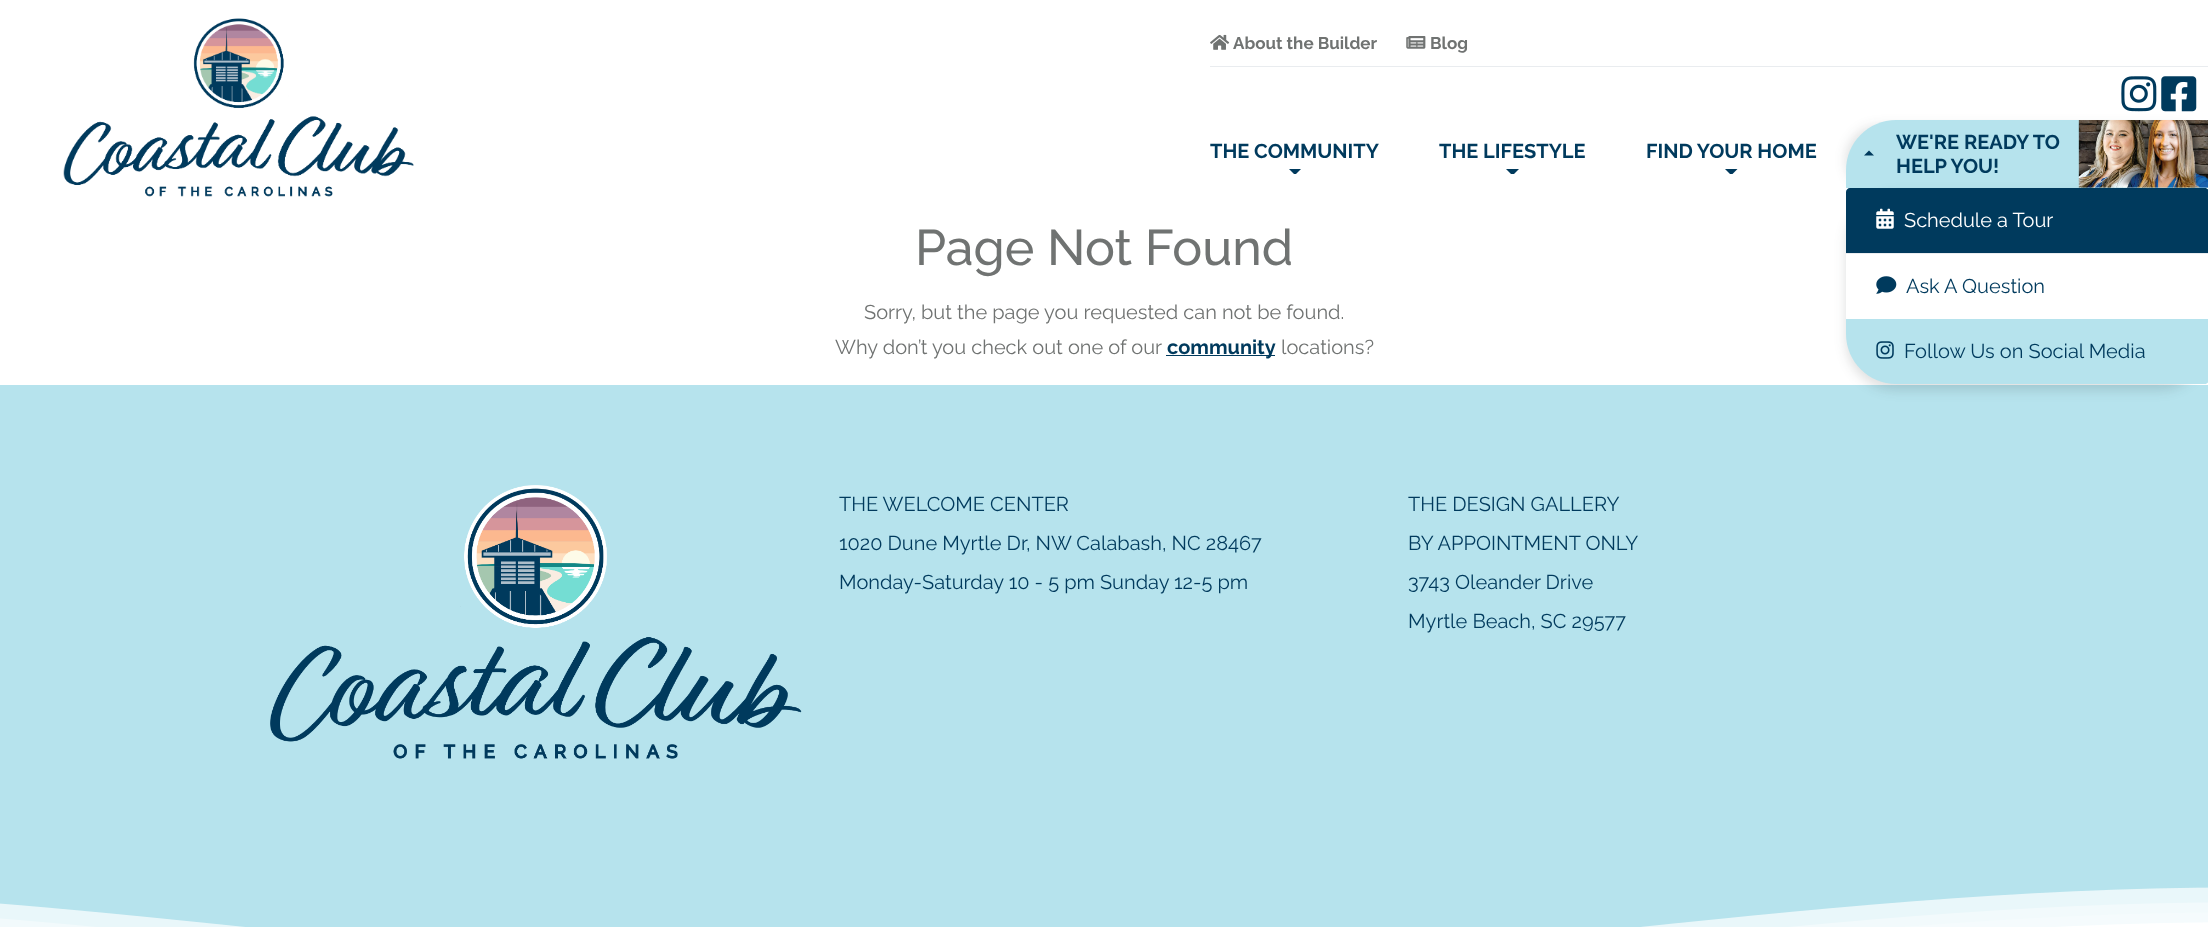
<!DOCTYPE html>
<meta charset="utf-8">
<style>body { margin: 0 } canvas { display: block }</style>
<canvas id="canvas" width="2208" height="927"></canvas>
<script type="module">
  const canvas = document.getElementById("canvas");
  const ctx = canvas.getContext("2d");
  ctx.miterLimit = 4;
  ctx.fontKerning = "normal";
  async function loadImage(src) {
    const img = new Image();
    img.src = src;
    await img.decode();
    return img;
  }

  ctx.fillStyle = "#ffffff";
  ctx.fillRect(0, 0, 2208, 927);
  ctx.font = "500 50px Raleway";
  ctx.fillStyle = "#707372";
  ctx.fillText("Page Not Found", 915, 265);
  ctx.font = "20px Raleway";
  ctx.fillText("Sorry, but the page you requested can not be found.", 864, 319);
  ctx.fillText("Why don’t you check out one of our", 835, 354);
  ctx.fillStyle = "#003a5d";
  ctx.fillRect(1166, 355, 109, 1);
  ctx.font = "bold 20px Raleway";
  ctx.fillText("community", 1167, 354);
  ctx.font = "20px Raleway";
  ctx.fillStyle = "#707372";
  ctx.fillText("locations?", 1281, 354);
  ctx.drawImage(await loadImage("img1.png"), 63, 18, 351, 179);
  ctx.fillStyle = "#e9ecef";
  ctx.fillRect(1210, 66, 998, 1);
  ctx.drawImage(await loadImage("img2.png"), 1210, 34, 20, 16);
  ctx.font = "bold 17px Raleway";
  ctx.fillStyle = "#707372";
  ctx.fillText("About the Builder", 1233, 49);
  ctx.drawImage(await loadImage("img3.png"), 1406, 36, 20, 13);
  ctx.fillText("Blog", 1430, 49);
  ctx.drawImage(await loadImage("img4.png"), 2121, 76, 36, 36);
  ctx.drawImage(await loadImage("img5.png"), 2161, 76, 36, 36);
  ctx.font = "bold 20px Raleway";
  ctx.fillStyle = "#003a5d";
  ctx.fillText("THE COMMUNITY", 1210, 158);
  ctx.beginPath();
  ctx.moveTo(1289, 169);
  ctx.lineTo(1301, 169);
  ctx.lineTo(1296, 174);
  ctx.lineTo(1294, 174);
  ctx.closePath();
  ctx.fill();
  ctx.fillText("THE LIFESTYLE", 1439, 158);
  ctx.beginPath();
  ctx.moveTo(1506, 169);
  ctx.lineTo(1519, 169);
  ctx.lineTo(1514, 174);
  ctx.lineTo(1511, 174);
  ctx.closePath();
  ctx.fill();
  ctx.fillText("FIND YOUR HOME", 1646, 158);
  ctx.beginPath();
  ctx.moveTo(1725, 169);
  ctx.lineTo(1737.5, 169);
  ctx.lineTo(1732.5, 174);
  ctx.lineTo(1730, 174);
  ctx.closePath();
  ctx.fill();
  ctx.fillStyle = "rgba(33, 37, 41, 0.15)";
  ctx.filter = "blur(6px)";
  ctx.beginPath();
  ctx.roundRect(1846, 126, 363, 68, 50);
  ctx.fill();
  ctx.filter = "none";
  ctx.fillStyle = "#b6e3ed";
  ctx.beginPath();
  ctx.moveTo(1896, 120);
  ctx.lineTo(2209, 120);
  ctx.lineTo(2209, 188);
  ctx.lineTo(1846, 188);
  ctx.lineTo(1846, 170);
  ctx.bezierCurveTo(1846, 142.5, 1868.5, 120, 1896, 120);
  ctx.closePath();
  ctx.fill();
  ctx.fillStyle = "#003a5d";
  ctx.beginPath();
  ctx.moveTo(1874, 155.5);
  ctx.lineTo(1864, 155.5);
  ctx.lineTo(1869, 150.5);
  ctx.closePath();
  ctx.fill();
  ctx.fillText("WE'RE READY TO", 1896, 149);
  ctx.fillText("HELP YOU!", 1896, 173);
  ctx.drawImage(await loadImage("img6.png"), 2078, 120, 130, 68);
  ctx.fillStyle = "#b6e3ed";
  ctx.fillRect(0, 385, 2208, 542);
  ctx.fillStyle = "rgba(33, 37, 41, 0.15)";
  ctx.filter = "blur(6px)";
  ctx.beginPath();
  ctx.roundRect(1846, 194, 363, 196, 50);
  ctx.fill();
  ctx.filter = "none";
  ctx.fillStyle = "#b6e3ed";
  ctx.beginPath();
  ctx.moveTo(1850, 188);
  ctx.lineTo(2205, 188);
  ctx.bezierCurveTo(2207, 188, 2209, 190, 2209, 192);
  ctx.lineTo(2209, 380);
  ctx.bezierCurveTo(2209, 382, 2207, 384, 2205, 384);
  ctx.lineTo(1896, 384);
  ctx.bezierCurveTo(1868.5, 384, 1846, 361.5, 1846, 334);
  ctx.lineTo(1846, 192);
  ctx.bezierCurveTo(1846, 190, 1848, 188, 1850, 188);
  ctx.closePath();
  ctx.fill();
  ctx.fillStyle = "#003a5d";
  ctx.beginPath();
  ctx.moveTo(1850, 188);
  ctx.lineTo(2205, 188);
  ctx.bezierCurveTo(2207, 188, 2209, 190, 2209, 192);
  ctx.lineTo(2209, 254);
  ctx.lineTo(1846, 254);
  ctx.lineTo(1846, 192);
  ctx.bezierCurveTo(1846, 190, 1848, 188, 1850, 188);
  ctx.closePath();
  ctx.fill();
  ctx.fillStyle = "#e9ecef";
  ctx.fillRect(1846, 253, 362, 1);
  ctx.drawImage(await loadImage("img7.png"), 1876, 208, 18, 21);
  ctx.font = "20px Raleway";
  ctx.fillStyle = "#ffffff";
  ctx.fillText("Schedule a Tour", 1904, 227);
  ctx.fillRect(1846, 254, 362, 65);
  ctx.drawImage(await loadImage("img8.png"), 1876, 276, 21, 18);
  ctx.fillStyle = "#003a5d";
  ctx.fillText("Ask A Question", 1906, 293);
  ctx.drawImage(await loadImage("img9.png"), 1876, 341, 18, 18);
  ctx.fillText("Follow Us on Social Media", 1904, 358);
  ctx.drawImage(await loadImage("img10.png"), 270, 485, 532, 274);
  ctx.fillText("THE WELCOME CENTER", 839, 511);
  ctx.fillText("1020 Dune Myrtle Dr, NW Calabash, NC 28467", 839, 550);
  ctx.fillText("Monday-Saturday 10 - 5 pm Sunday 12-5 pm", 839, 589);
  ctx.fillText("THE DESIGN GALLERY", 1408, 511);
  ctx.fillText("BY APPOINTMENT ONLY", 1408, 550);
  ctx.fillText("3743 Oleander Drive", 1408, 589);
  ctx.fillText("Myrtle Beach, SC 29577", 1408, 628);
  ctx.drawImage(await loadImage("img11.png"), 0, 887, 2208, 40);
</script>
